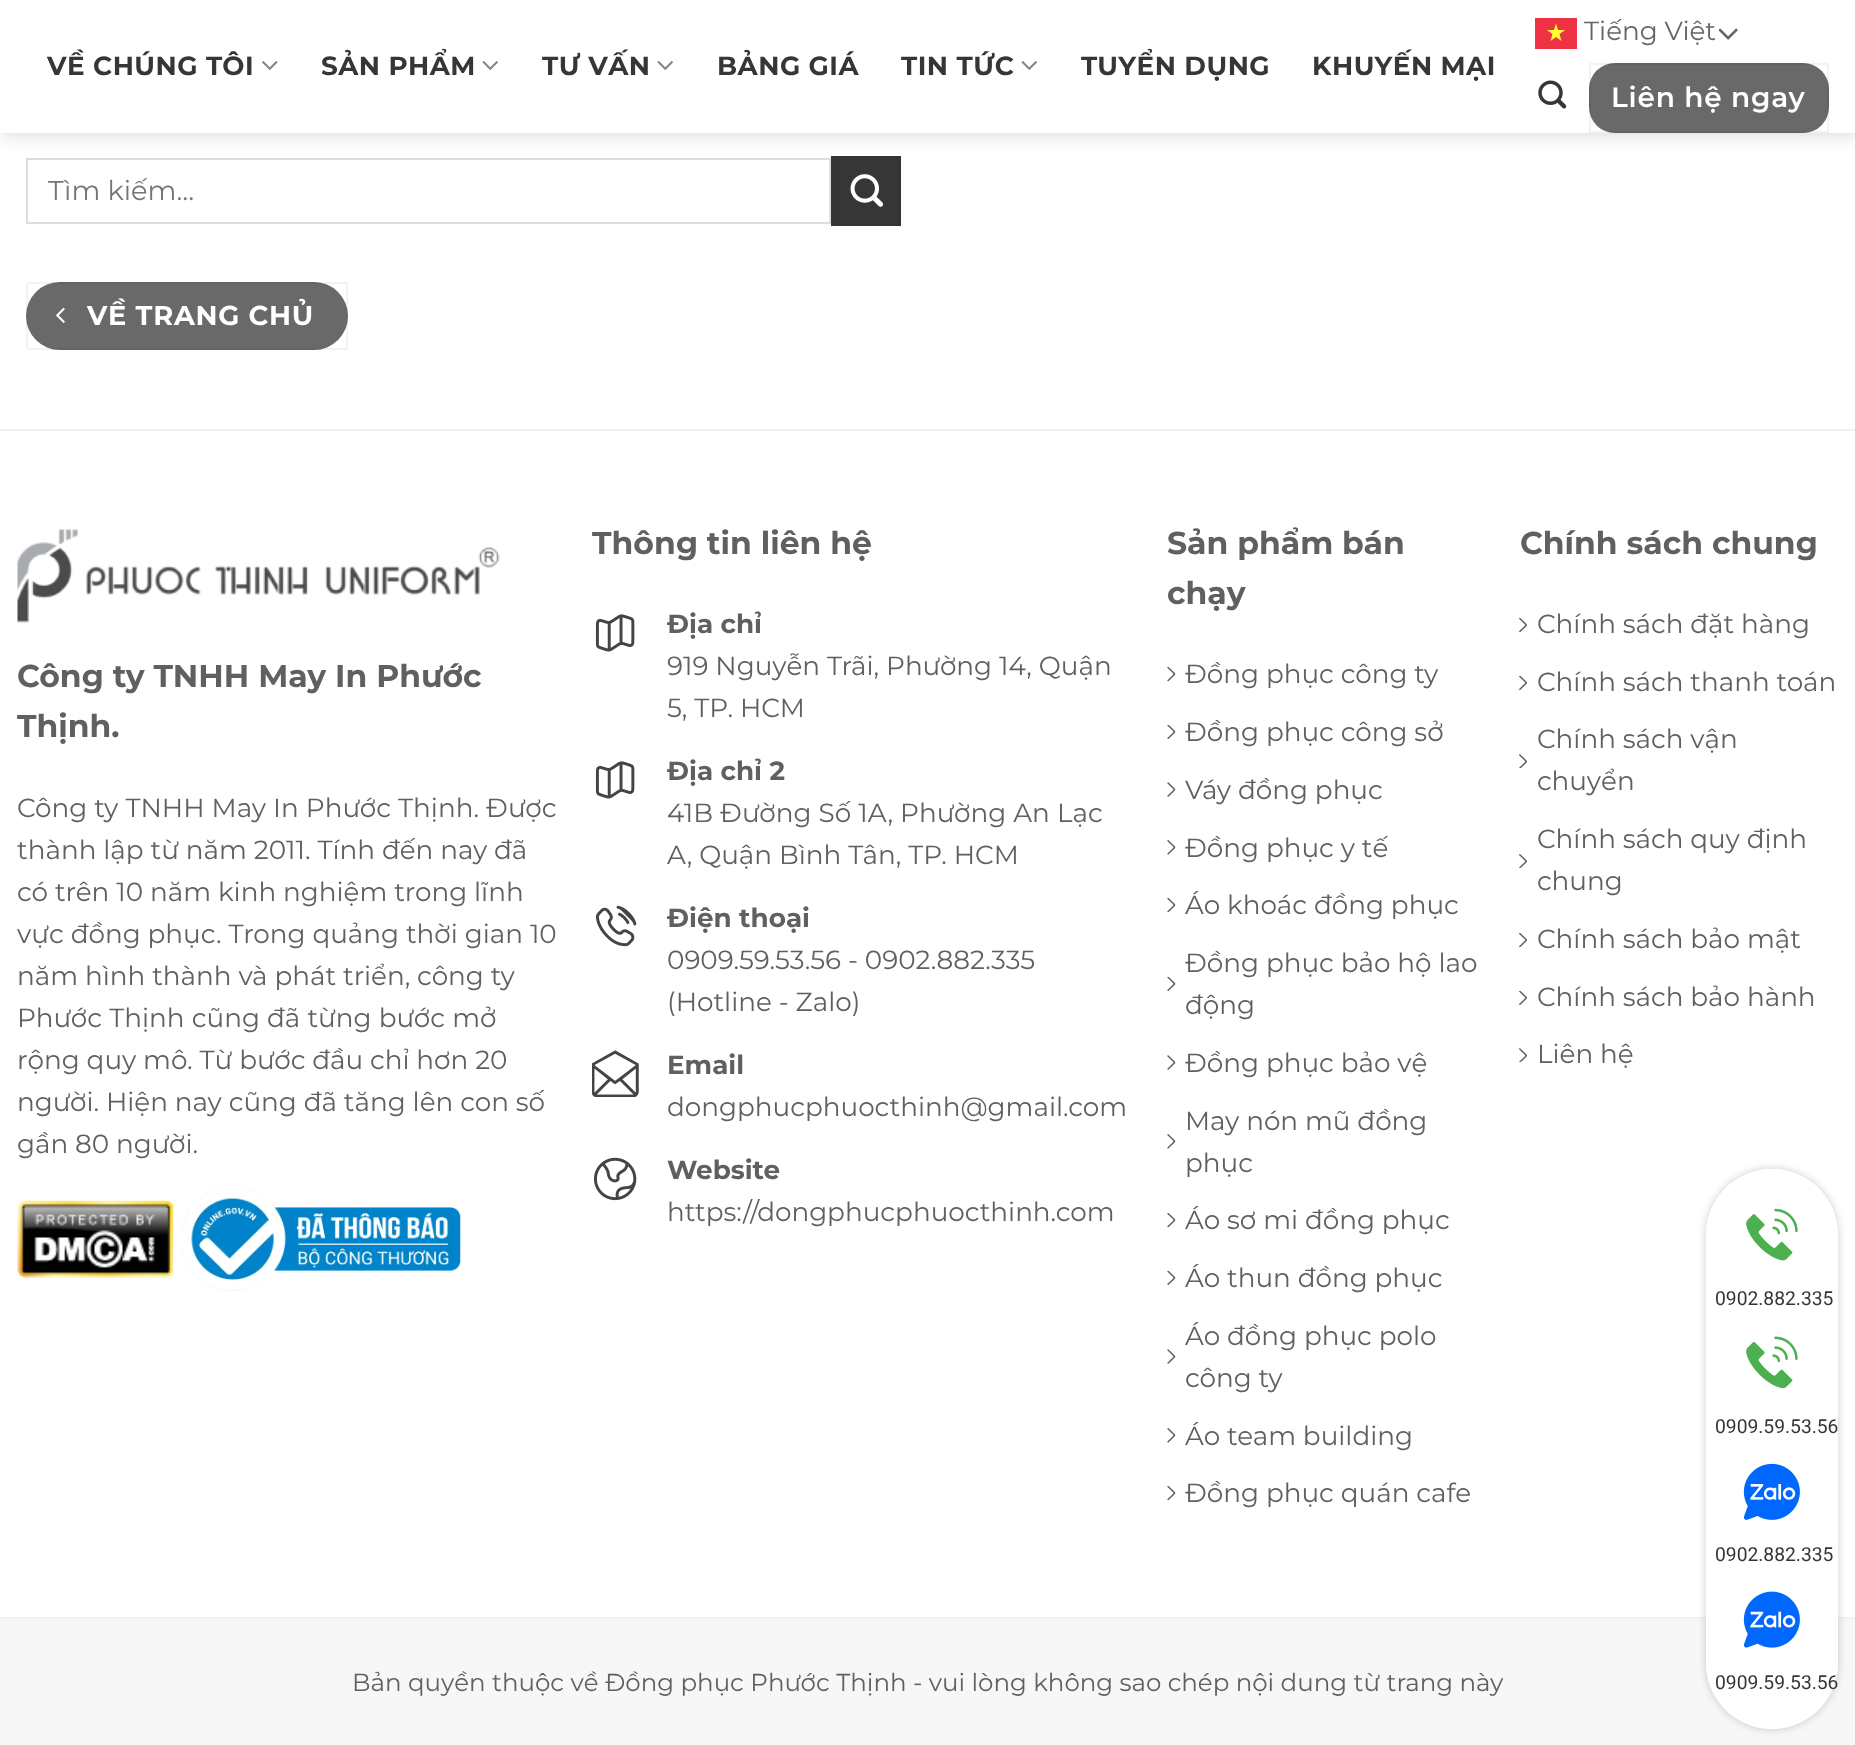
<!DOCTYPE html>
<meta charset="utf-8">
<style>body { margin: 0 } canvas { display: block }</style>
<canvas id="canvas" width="1855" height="1745"></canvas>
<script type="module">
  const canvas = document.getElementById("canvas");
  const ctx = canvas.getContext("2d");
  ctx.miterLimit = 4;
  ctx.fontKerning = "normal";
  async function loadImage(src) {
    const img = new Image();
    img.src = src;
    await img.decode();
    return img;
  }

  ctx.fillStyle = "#ffffff";
  ctx.fillRect(0, 0, 1855, 1745);
  ctx.strokeStyle = "#dddddd";
  ctx.lineWidth = 2;
  ctx.strokeRect(27, 159, 803, 64);
  ctx.fillStyle = "#363636";
  ctx.beginPath();
  ctx.rect(832, 157, 68, 68);
  ctx.fill();
  ctx.strokeStyle = "#333333";
  ctx.stroke();
  ctx.fillStyle = "rgba(0, 0, 0, 0.15)";
  ctx.filter = "blur(9px)";
  ctx.beginPath();
  ctx.rect(2, 2, 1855, 133);
  ctx.fill();
  ctx.filter = "none";
  ctx.fillStyle = "#ffffff";
  ctx.fillRect(0, 0, 1855, 133);
  ctx.letterSpacing = "0.5px";
  ctx.font = "bold 26.25px Montserrat";
  ctx.fillStyle = "#363636";
  ctx.fillText("VỀ CHÚNG TÔI", 47, 75);
  ctx.drawImage(await loadImage("img1.png"), 262, 61, 16, 9);
  ctx.fillText("SẢN PHẨM", 321, 75);
  ctx.drawImage(await loadImage("img2.png"), 482, 61, 16, 9);
  ctx.fillText("TƯ VẤN", 542, 75);
  ctx.drawImage(await loadImage("img2.png"), 657, 61, 16, 9);
  ctx.fillText("BẢNG GIÁ", 717, 75);
  ctx.fillText("TIN TỨC", 901, 75);
  ctx.drawImage(await loadImage("img2.png"), 1021, 61, 16, 9);
  ctx.fillText("TUYỂN DỤNG", 1081, 75);
  ctx.fillText("KHUYẾN MẠI", 1312, 75);
  ctx.fillStyle = "#f03344";
  ctx.fillRect(1535, 18, 42, 31);
  ctx.letterSpacing = "0px";
  ctx.font = "26.25px Montserrat";
  ctx.fillStyle = "#666666";
  ctx.fillText("Tiếng Việt", 1584, 40);
  ctx.fillStyle = "#ffff33";
  ctx.beginPath();
  ctx.moveTo(1561.5, 41);
  ctx.lineTo(1556, 37);
  ctx.lineTo(1550.5, 41);
  ctx.lineTo(1552.5, 34);
  ctx.lineTo(1547, 30);
  ctx.lineTo(1554, 30);
  ctx.lineTo(1556, 23.5);
  ctx.lineTo(1558, 30);
  ctx.lineTo(1565, 30);
  ctx.lineTo(1559.5, 34);
  ctx.closePath();
  ctx.fill("evenodd");
  ctx.drawImage(await loadImage("img3.png"), 1719, 28, 19, 12);
  ctx.drawImage(await loadImage("img4.png"), 1538, 80, 29, 29);
  ctx.fillStyle = "#696969";
  ctx.beginPath();
  ctx.roundRect(1589, 63, 240, 70, 26);
  ctx.fill();
  ctx.strokeStyle = "rgba(0, 0, 0, 0.05)";
  ctx.strokeRect(1590, 64, 238, 68);
  ctx.letterSpacing = "0.8px";
  ctx.font = "600 28px Montserrat";
  ctx.fillStyle = "#ffffff";
  ctx.fillText("Liên hệ ngay", 1611, 107);
  ctx.letterSpacing = "0px";
  ctx.font = "27.25px Montserrat";
  ctx.fillStyle = "#757575";
  ctx.fillText("Tìm kiếm…", 48, 200);
  ctx.drawImage(await loadImage("img5.png"), 850, 174, 34, 33);
  ctx.fillStyle = "#696969";
  ctx.beginPath();
  ctx.roundRect(26, 282, 322, 68, 34);
  ctx.fill();
  ctx.strokeRect(27, 283, 320, 66);
  ctx.drawImage(await loadImage("img6.png"), 56, 307, 9, 16);
  ctx.letterSpacing = "0.75px";
  ctx.font = "bold 27.25px Montserrat";
  ctx.fillStyle = "#ffffff";
  ctx.fillText("VỀ TRANG CHỦ", 87, 325);
  ctx.fillStyle = "#f1f1f1";
  ctx.fillRect(0, 429, 1855, 2);
  ctx.fillRect(0, 1617, 1855, 2);
  ctx.drawImage(await loadImage("img7.png"), 17, 529, 483, 94);
  ctx.letterSpacing = "0px";
  ctx.font = "bold 31.5px Montserrat";
  ctx.fillStyle = "#606060";
  ctx.fillText("Công ty TNHH May In Phước", 17, 687);
  ctx.fillText("Thịnh.", 17, 737);
  ctx.wordSpacing = "0.25px";
  ctx.font = "26.25px Montserrat";
  ctx.fillText("Công ty TNHH May In Phước Thịnh. Được", 17, 817);
  ctx.wordSpacing = "0px";
  ctx.fillText("thành lập từ năm 2011. Tính đến nay đã", 17, 859);
  ctx.fillText("có trên 10 năm kinh nghiệm trong lĩnh", 17, 901);
  ctx.fillText("vực đồng phục. Trong quảng thời gian 10", 17, 943);
  ctx.fillText("năm hình thành và phát triển, công ty", 17, 985);
  ctx.wordSpacing = "0.25px";
  ctx.fillText("Phước Thịnh cũng đã từng bước mở", 17, 1027);
  ctx.wordSpacing = "0px";
  ctx.fillText("rộng quy mô. Từ bước đầu chỉ hơn 20", 17, 1069);
  ctx.fillText("người. Hiện nay cũng đã tăng lên con số", 17, 1111);
  ctx.fillText("gần 80 người.", 17, 1153);
  ctx.drawImage(await loadImage("img8.png"), 17, 1200, 157, 78);
  ctx.drawImage(await loadImage("img9.png"), 180, 1187, 281, 104);
  ctx.font = "bold 31.5px Montserrat";
  ctx.fillText("Thông tin liên hệ", 592, 554);
  ctx.drawImage(await loadImage("img10.png"), 595, 614, 40, 38);
  ctx.font = "bold 26.25px Montserrat";
  ctx.fillText("Địa chỉ", 667, 633);
  ctx.font = "26.25px Montserrat";
  ctx.fillText("919 Nguyễn Trãi, Phường 14, Quận", 667, 675);
  ctx.fillText("5, TP. HCM", 667, 717);
  ctx.drawImage(await loadImage("img10.png"), 595, 761, 40, 38);
  ctx.font = "bold 26.25px Montserrat";
  ctx.fillText("Địa chỉ 2", 667, 780);
  ctx.wordSpacing = "0.25px";
  ctx.font = "26.25px Montserrat";
  ctx.fillText("41B Đường Số 1A, Phường An Lạc", 667, 822);
  ctx.wordSpacing = "0px";
  ctx.fillText("A, Quận Bình Tân, TP. HCM", 667, 864);
  ctx.drawImage(await loadImage("img11.png"), 595, 905, 42, 42);
  ctx.font = "bold 26.25px Montserrat";
  ctx.fillText("Điện thoại", 667, 927);
  ctx.font = "26.25px Montserrat";
  ctx.fillText("0909.59.53.56 - 0902.882.335", 667, 969);
  ctx.fillText("(Hotline - Zalo)", 667, 1011);
  ctx.drawImage(await loadImage("img12.png"), 592, 1050, 47, 47);
  ctx.font = "bold 26.25px Montserrat";
  ctx.fillText("Email", 667, 1074);
  ctx.font = "26.25px Montserrat";
  ctx.fillText("dongphucphuocthinh@gmail.com", 667, 1116);
  ctx.drawImage(await loadImage("img13.png"), 594, 1157, 43, 44);
  ctx.font = "bold 26.25px Montserrat";
  ctx.fillText("Website", 667, 1179);
  ctx.font = "26.25px Montserrat";
  ctx.fillText("https://dongphucphuocthinh.com", 667, 1221);
  ctx.font = "bold 31.5px Montserrat";
  ctx.fillText("Sản phẩm bán", 1167, 554);
  ctx.fillText("chạy", 1167, 604);
  ctx.drawImage(await loadImage("img14.png"), 1167, 667, 9, 15);
  ctx.font = "26.25px Montserrat";
  ctx.fillText("Đồng phục công ty", 1185, 683);
  ctx.drawImage(await loadImage("img15.png"), 1167, 725, 9, 14);
  ctx.fillText("Đồng phục công sở", 1185, 741);
  ctx.drawImage(await loadImage("img16.png"), 1167, 782, 9, 15);
  ctx.fillText("Váy đồng phục", 1185, 799);
  ctx.drawImage(await loadImage("img17.png"), 1167, 840, 9, 15);
  ctx.fillText("Đồng phục y tế", 1185, 857);
  ctx.drawImage(await loadImage("img14.png"), 1167, 898, 9, 15);
  ctx.fillText("Áo khoác đồng phục", 1185, 914);
  ctx.drawImage(await loadImage("img15.png"), 1167, 977, 9, 14);
  ctx.fillText("Đồng phục bảo hộ lao", 1185, 972);
  ctx.fillText("động", 1185, 1014);
  ctx.drawImage(await loadImage("img16.png"), 1167, 1055, 9, 15);
  ctx.fillText("Đồng phục bảo vệ", 1185, 1072);
  ctx.drawImage(await loadImage("img17.png"), 1167, 1134, 9, 15);
  ctx.fillText("May nón mũ đồng", 1185, 1130);
  ctx.fillText("phục", 1185, 1172);
  ctx.drawImage(await loadImage("img14.png"), 1167, 1213, 9, 15);
  ctx.fillText("Áo sơ mi đồng phục", 1185, 1229);
  ctx.drawImage(await loadImage("img15.png"), 1167, 1271, 9, 14);
  ctx.fillText("Áo thun đồng phục", 1185, 1287);
  ctx.drawImage(await loadImage("img16.png"), 1167, 1349, 9, 15);
  ctx.fillText("Áo đồng phục polo", 1185, 1345);
  ctx.fillText("công ty", 1185, 1387);
  ctx.drawImage(await loadImage("img17.png"), 1167, 1428, 9, 15);
  ctx.fillText("Áo team building", 1185, 1445);
  ctx.drawImage(await loadImage("img14.png"), 1167, 1486, 9, 15);
  ctx.fillText("Đồng phục quán cafe", 1185, 1502);
  ctx.font = "bold 31.5px Montserrat";
  ctx.fillText("Chính sách chung", 1520, 554);
  ctx.drawImage(await loadImage("img18.png"), 1519, 618, 8, 14);
  ctx.font = "26.25px Montserrat";
  ctx.fillText("Chính sách đặt hàng", 1537, 633);
  ctx.drawImage(await loadImage("img19.png"), 1519, 676, 8, 14);
  ctx.fillText("Chính sách thanh toán", 1537, 691);
  ctx.drawImage(await loadImage("img20.png"), 1519, 754, 8, 14);
  ctx.fillText("Chính sách vận", 1537, 748);
  ctx.fillText("chuyển", 1537, 790);
  ctx.drawImage(await loadImage("img21.png"), 1519, 854, 8, 14);
  ctx.fillText("Chính sách quy định", 1537, 848);
  ctx.fillText("chung", 1537, 890);
  ctx.drawImage(await loadImage("img18.png"), 1519, 933, 8, 14);
  ctx.fillText("Chính sách bảo mật", 1537, 948);
  ctx.drawImage(await loadImage("img19.png"), 1519, 991, 8, 14);
  ctx.fillText("Chính sách bảo hành", 1537, 1006);
  ctx.drawImage(await loadImage("img20.png"), 1519, 1048, 8, 14);
  ctx.fillText("Liên hệ", 1537, 1063);
  ctx.fillStyle = "#f7f7f7";
  ctx.fillRect(0, 1619, 1855, 126);
  ctx.font = "24.5px Montserrat";
  ctx.fillStyle = "#606060";
  ctx.fillText("Bản quyền thuộc về Đồng phục Phước Thịnh - vui lòng không sao chép nội dung từ trang này", 352, 1691);
  ctx.save();
  ctx.beginPath();
  ctx.moveTo(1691, 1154);
  ctx.lineTo(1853, 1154);
  ctx.lineTo(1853, 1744);
  ctx.lineTo(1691, 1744);
  ctx.closePath();
  ctx.moveTo(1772, 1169);
  ctx.bezierCurveTo(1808.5, 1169, 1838, 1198.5, 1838, 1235);
  ctx.lineTo(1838, 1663);
  ctx.bezierCurveTo(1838, 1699.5, 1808.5, 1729, 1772, 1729);
  ctx.bezierCurveTo(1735.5, 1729, 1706, 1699.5, 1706, 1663);
  ctx.lineTo(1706, 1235);
  ctx.bezierCurveTo(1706, 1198.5, 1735.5, 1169, 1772, 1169);
  ctx.closePath();
  ctx.clip("evenodd");
  ctx.fillStyle = "rgba(0, 0, 0, 0.2)";
  ctx.filter = "blur(4.5px)";
  ctx.beginPath();
  ctx.roundRect(1706, 1169, 132, 560, 66);
  ctx.fill();
  ctx.filter = "none";
  ctx.restore();
  ctx.fillStyle = "rgba(255, 255, 255, 0.96)";
  ctx.beginPath();
  ctx.roundRect(1706, 1169, 132, 560, 66);
  ctx.fill();
  ctx.drawImage(await loadImage("img22.png"), 1746, 1208, 52, 53);
  ctx.font = "19.25px Roboto";
  ctx.fillStyle = "#363636";
  ctx.fillText("0902.882.335", 1715, 1305);
  ctx.drawImage(await loadImage("img23.png"), 1746, 1336, 52, 53);
  ctx.fillText("0909.59.53.56", 1715, 1433);
  ctx.drawImage(await loadImage("img24.png"), 1743, 1463, 57, 57);
  ctx.fillText("0902.882.335", 1715, 1561);
  ctx.drawImage(await loadImage("img25.png"), 1743, 1591, 57, 57);
  ctx.fillText("0909.59.53.56", 1715, 1689);
</script>
